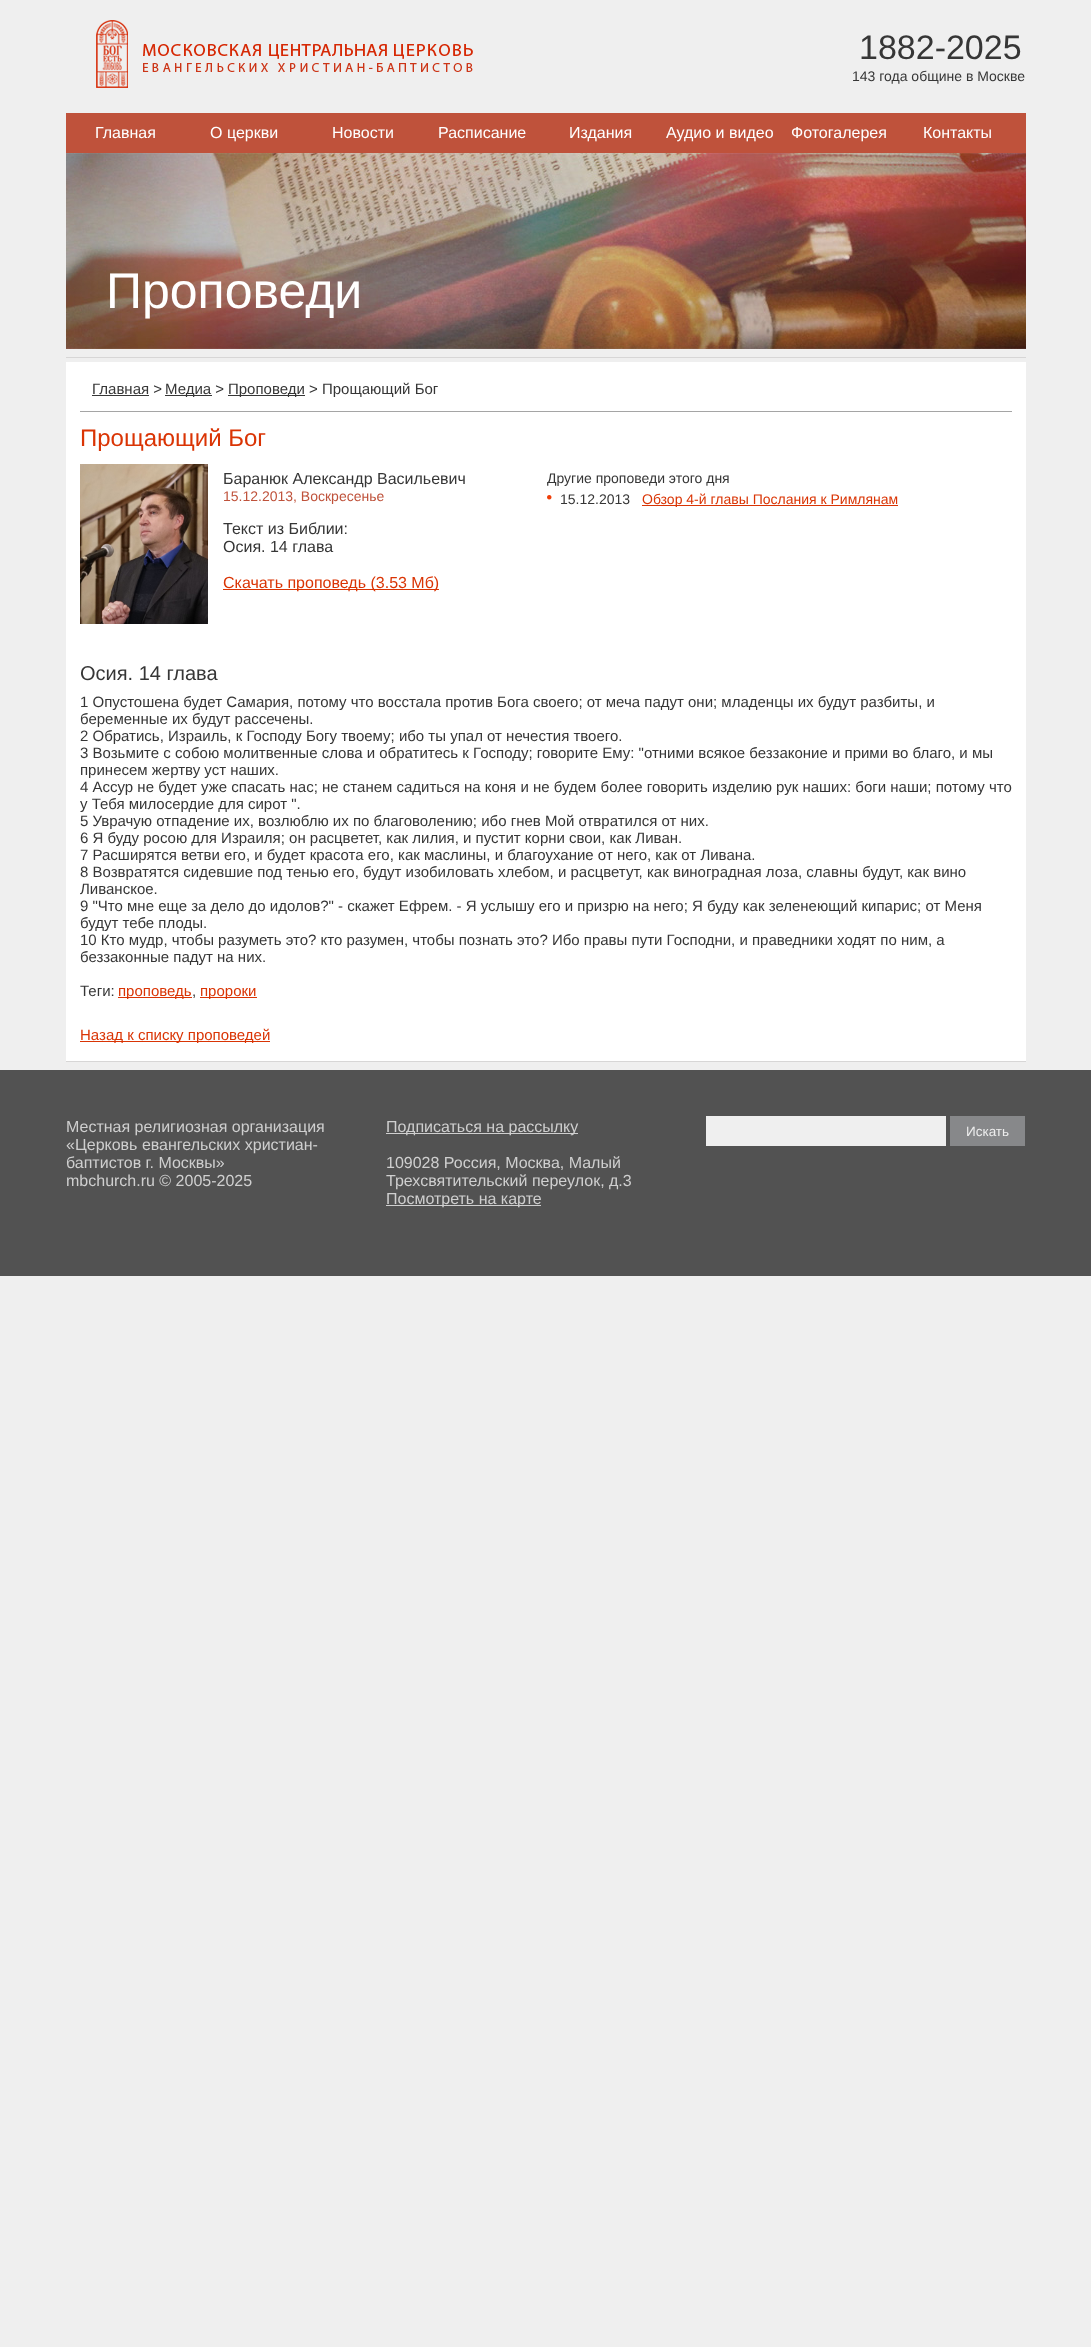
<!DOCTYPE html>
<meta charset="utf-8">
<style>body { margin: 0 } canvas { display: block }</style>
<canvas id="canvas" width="1091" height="2347"></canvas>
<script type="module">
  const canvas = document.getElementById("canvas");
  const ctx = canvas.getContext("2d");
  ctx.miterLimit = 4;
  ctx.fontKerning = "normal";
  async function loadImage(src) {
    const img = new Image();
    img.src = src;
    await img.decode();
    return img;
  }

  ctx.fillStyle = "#efefef";
  ctx.fillRect(0, 0, 1091, 2347);
  ctx.drawImage(await loadImage("img1.png"), 96, 20, 377, 68);
  ctx.font = "34px Liberation Sans";
  ctx.fillStyle = "#363636";
  ctx.fillText("1882-2025", 859, 59);
  ctx.font = "14px Liberation Sans";
  ctx.fillText("143 года общине в Москве", 852, 81);
  ctx.fillStyle = "#bf523b";
  ctx.fillRect(66, 113, 960, 40);
  ctx.font = "16px Liberation Sans";
  ctx.fillStyle = "#ffffff";
  ctx.fillText("Главная", 95, 138);
  ctx.fillText("О церкви", 210, 138);
  ctx.fillText("Новости", 332, 138);
  ctx.fillText("Расписание", 438, 138);
  ctx.fillText("Издания", 569, 138);
  ctx.fillText("Аудио и видео", 666, 138);
  ctx.fillText("Фотогалерея", 791, 138);
  ctx.fillText("Контакты", 923, 138);
  ctx.fillStyle = "#d7d6d6";
  ctx.fillRect(66, 357, 960, 1);
  ctx.drawImage(await loadImage("img2.png"), 66, 153, 960, 196);
  ctx.font = "50px Liberation Sans";
  ctx.fillStyle = "#ffffff";
  ctx.fillText("Проповеди", 106, 308);
  ctx.fillRect(66, 362, 960, 699);
  ctx.fillStyle = "#d7d6d6";
  ctx.fillRect(66, 1061, 960, 1);
  ctx.font = "15px Liberation Sans";
  ctx.fillStyle = "#363636";
  ctx.fillText("Главная >", 92, 394);
  ctx.fillRect(92, 395, 57, 1);
  ctx.fillRect(165, 395, 47, 1);
  ctx.fillText("Медиа >", 165, 394);
  ctx.fillRect(228, 395, 77, 1);
  ctx.fillText("Проповеди > Прощающий Бог", 228, 394);
  ctx.fillStyle = "#a5a5a5";
  ctx.fillRect(80, 411, 932, 1);
  ctx.font = "24px Liberation Sans";
  ctx.fillStyle = "#da3404";
  ctx.fillText("Прощающий Бог", 80, 446);
  ctx.drawImage(await loadImage("img3.png"), 80, 464, 128, 160);
  ctx.font = "16px Liberation Sans";
  ctx.fillStyle = "#363636";
  ctx.fillText("Баранюк Александр Васильевич", 223, 484);
  ctx.font = "14px Liberation Sans";
  ctx.fillStyle = "#bf523b";
  ctx.fillText("15.12.2013, Воскресенье", 223, 501);
  ctx.font = "16px Liberation Sans";
  ctx.fillStyle = "#363636";
  ctx.fillText("Текст из Библии:", 223, 534);
  ctx.fillText("Осия. 14 глава", 223, 552);
  ctx.fillStyle = "#d93404";
  ctx.fillRect(223, 589, 216, 1);
  ctx.fillStyle = "#da3404";
  ctx.fillText("Скачать проповедь (3.53 Мб)", 223, 588);
  ctx.font = "14px Liberation Sans";
  ctx.fillStyle = "#363636";
  ctx.fillText("Другие проповеди этого дня", 547, 483);
  ctx.drawImage(await loadImage("img4.png"), 547, 495, 5, 5);
  ctx.fillText("15.12.2013", 560, 504);
  ctx.fillStyle = "#d93404";
  ctx.fillRect(642, 505, 256, 1);
  ctx.fillStyle = "#da3404";
  ctx.fillText("Обзор 4-й главы Послания к Римлянам", 642, 504);
  ctx.font = "20px Liberation Sans";
  ctx.fillStyle = "#363636";
  ctx.fillText("Осия. 14 глава", 80, 680);
  ctx.font = "15px Liberation Sans";
  ctx.fillText("1 Опустошена будет Самария, потому что восстала против Бога своего; от меча падут они; младенцы их будут разбиты, и", 80, 707);
  ctx.fillText("беременные их будут рассечены.", 80, 724);
  ctx.fillText("2 Обратись, Израиль, к Господу Богу твоему; ибо ты упал от нечестия твоего.", 80, 741);
  ctx.fillText("3 Возьмите с собою молитвенные слова и обратитесь к Господу; говорите Ему: \"отними всякое беззаконие и прими во благо, и мы", 80, 758);
  ctx.fillText("принесем жертву уст наших.", 80, 775);
  ctx.fillText("4 Ассур не будет уже спасать нас; не станем садиться на коня и не будем более говорить изделию рук наших: боги наши; потому что", 80, 792);
  ctx.fillText("у Тебя милосердие для сирот \".", 80, 809);
  ctx.fillText("5 Уврачую отпадение их, возлюблю их по благоволению; ибо гнев Мой отвратился от них.", 80, 826);
  ctx.fillText("6 Я буду росою для Израиля; он расцветет, как лилия, и пустит корни свои, как Ливан.", 80, 843);
  ctx.fillText("7 Расширятся ветви его, и будет красота его, как маслины, и благоухание от него, как от Ливана.", 80, 860);
  ctx.fillText("8 Возвратятся сидевшие под тенью его, будут изобиловать хлебом, и расцветут, как виноградная лоза, славны будут, как вино", 80, 877);
  ctx.fillText("Ливанское.", 80, 894);
  ctx.fillText("9 \"Что мне еще за дело до идолов?\" - скажет Ефрем. - Я услышу его и призрю на него; Я буду как зеленеющий кипарис; от Меня", 80, 911);
  ctx.fillText("будут тебе плоды.", 80, 928);
  ctx.fillText("10 Кто мудр, чтобы разуметь это? кто разумен, чтобы познать это? Ибо правы пути Господни, и праведники ходят по ним, а", 80, 945);
  ctx.fillText("беззаконные падут на них.", 80, 962);
  ctx.fillText("Теги:", 80, 996);
  ctx.fillStyle = "#d93404";
  ctx.fillRect(118, 997, 74, 1);
  ctx.fillStyle = "#da3404";
  ctx.fillText("проповедь", 118, 996);
  ctx.fillStyle = "#363636";
  ctx.fillText(",", 192, 996);
  ctx.fillStyle = "#d93404";
  ctx.fillRect(200, 997, 57, 1);
  ctx.fillStyle = "#da3404";
  ctx.fillText("пророки", 200, 996);
  ctx.fillStyle = "#d93404";
  ctx.fillRect(80, 1041, 190, 1);
  ctx.fillStyle = "#da3404";
  ctx.fillText("Назад к списку проповедей", 80, 1040);
  ctx.fillStyle = "#525252";
  ctx.fillRect(0, 1070, 1091, 206);
  ctx.font = "16px Liberation Sans";
  ctx.fillStyle = "#cfcfcf";
  ctx.fillText("Местная религиозная организация", 66, 1132);
  ctx.fillText("«Церковь евангельских христиан-", 66, 1150);
  ctx.fillText("баптистов г. Москвы»", 66, 1168);
  ctx.fillText("mbchurch.ru © 2005-2025", 66, 1186);
  ctx.fillRect(386, 1133, 192, 1);
  ctx.fillText("Подписаться на рассылку", 386, 1132);
  ctx.fillText("109028 Россия, Москва, Малый", 386, 1168);
  ctx.fillText("Трехсвятительский переулок, д.3", 386, 1186);
  ctx.fillRect(386, 1205, 155, 1);
  ctx.fillText("Посмотреть на карте", 386, 1204);
  ctx.fillStyle = "#efefef";
  ctx.fillRect(706, 1116, 240, 30);
  ctx.fillStyle = "#87888a";
  ctx.fillRect(950, 1116, 75, 30);
  ctx.font = "13.5px Liberation Sans";
  ctx.fillStyle = "#ededed";
  ctx.fillText("Искать", 966, 1136);
</script>
